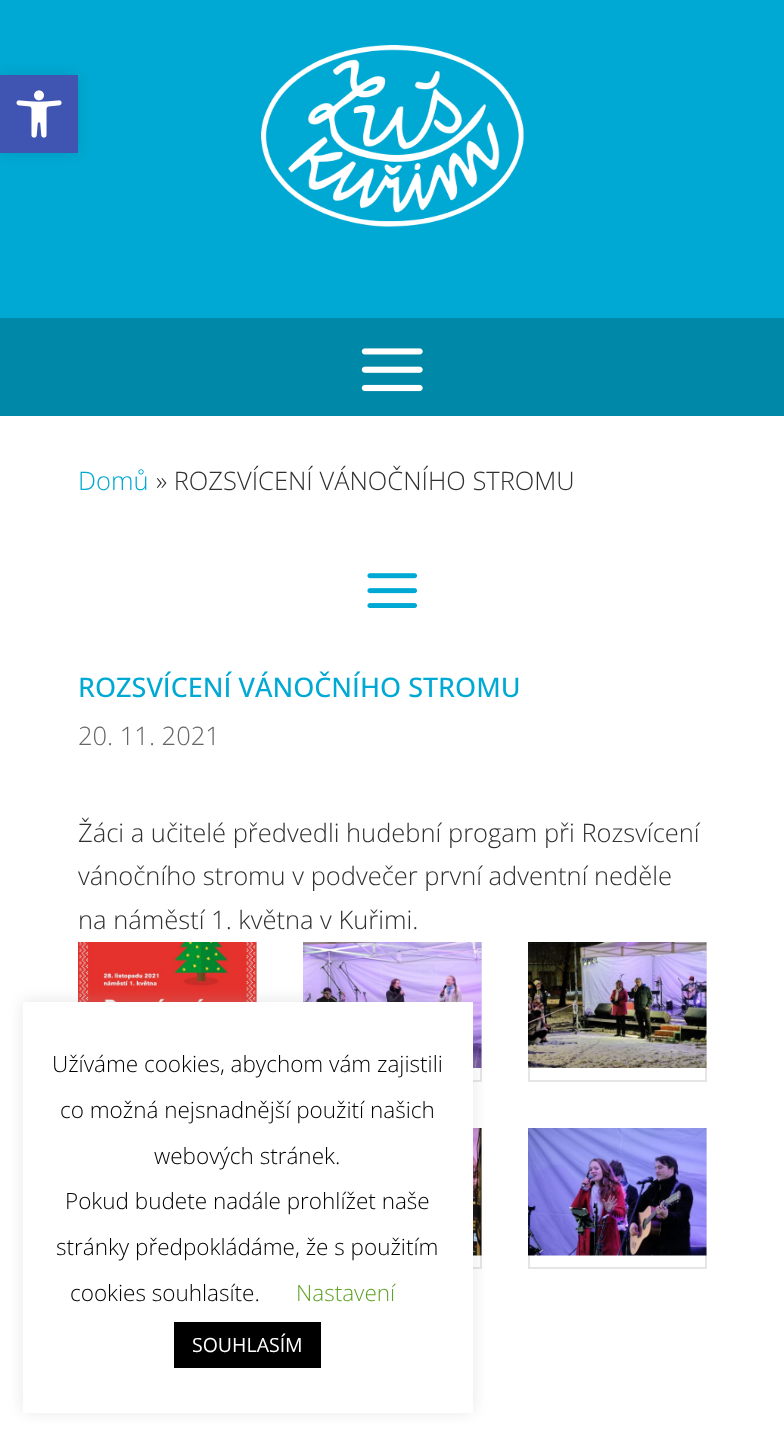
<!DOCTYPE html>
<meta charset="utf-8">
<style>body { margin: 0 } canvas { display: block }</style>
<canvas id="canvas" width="784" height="1435"></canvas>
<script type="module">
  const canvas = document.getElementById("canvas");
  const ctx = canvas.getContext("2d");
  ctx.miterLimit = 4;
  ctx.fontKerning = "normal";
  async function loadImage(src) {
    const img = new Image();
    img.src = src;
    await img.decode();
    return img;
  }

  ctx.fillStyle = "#ffffff";
  ctx.fillRect(0, 0, 784, 1435);
  ctx.fillStyle = "#00a9d3";
  ctx.fillRect(0, 0, 784, 318);
  ctx.fillStyle = "rgba(0, 0, 0, 0.1)";
  ctx.filter = "blur(7.5px)";
  ctx.beginPath();
  ctx.rect(0, 75, 78, 78);
  ctx.fill();
  ctx.filter = "none";
  ctx.fillStyle = "#4054b2";
  ctx.fillRect(0, 75, 78, 78);
  ctx.drawImage(await loadImage("img1.png"), 16, 90, 46, 48);
  ctx.drawImage(await loadImage("img2.png"), 261, 45, 263, 182);
  ctx.fillStyle = "#0088a9";
  ctx.fillRect(0, 318, 784, 98);
  ctx.drawImage(await loadImage("img3.png"), 361, 348, 62, 44);
  ctx.font = "300 25.5px Open Sans";
  ctx.fillStyle = "#00a9d3";
  ctx.fillText("Domů", 78, 490);
  ctx.fillStyle = "#303030";
  ctx.fillText("» ROZSVÍCENÍ VÁNOČNÍHO STROMU", 156, 490);
  ctx.drawImage(await loadImage("img4.png"), 367, 573, 51, 35);
  ctx.font = "500 27px Open Sans";
  ctx.fillStyle = "#00a9d3";
  ctx.fillText("ROZSVÍCENÍ VÁNOČNÍHO STROMU", 78, 697);
  ctx.font = "300 25.5px Open Sans";
  ctx.fillStyle = "#666666";
  ctx.fillText("20. 11. 2021", 78, 745);
  ctx.fillStyle = "#303030";
  ctx.fillText("Žáci a učitelé předvedli hudební progam při Rozsvícení", 78, 842);
  ctx.fillText("vánočního stromu v podvečer první adventní neděle", 78, 885);
  ctx.fillText("na náměstí 1. května v Kuřimi.", 78, 929);
  ctx.strokeStyle = "#e5e5e5";
  ctx.lineWidth = 2;
  ctx.strokeRect(79, 943, 177, 138);
  ctx.drawImage(await loadImage("img5.png"), 78, 942, 179, 60);
  ctx.strokeRect(304, 943, 177, 138);
  ctx.drawImage(await loadImage("img6.png"), 303, 942, 179, 126);
  ctx.strokeRect(529, 943, 177, 138);
  ctx.drawImage(await loadImage("img7.png"), 528, 942, 179, 126);
  ctx.strokeRect(304, 1129, 177, 139);
  ctx.drawImage(await loadImage("img8.png"), 473, 1128, 9, 128);
  ctx.strokeRect(529, 1129, 177, 139);
  ctx.drawImage(await loadImage("img9.png"), 528, 1128, 179, 128);
  ctx.fillStyle = "rgba(172, 171, 171, 0.3)";
  ctx.filter = "blur(7.5px)";
  ctx.beginPath();
  ctx.rect(23, 1001, 450, 411);
  ctx.fill();
  ctx.filter = "none";
  ctx.fillStyle = "#ffffff";
  ctx.fillRect(23, 1002, 450, 411);
  ctx.font = "300 22.5px Open Sans";
  ctx.fillStyle = "#000000";
  ctx.fillText("Užíváme cookies, abychom vám zajistili", 52, 1072);
  ctx.fillText("co možná nejsnadnější použití našich", 60, 1118);
  ctx.fillText("webových stránek.", 154, 1164);
  ctx.fillText("Pokud budete nadále prohlížet naše", 65, 1209);
  ctx.fillText("stránky předpokládáme, že s použitím", 56, 1255);
  ctx.fillText("cookies souhlasíte.", 70, 1301);
  ctx.fillStyle = "#62a329";
  ctx.fillText("Nastavení", 296, 1301);
  ctx.fillStyle = "#000000";
  ctx.fillRect(174, 1322, 147, 46);
  ctx.font = "19.5px Open Sans";
  ctx.fillStyle = "#ffffff";
  ctx.fillText("SOUHLASÍM", 192, 1352);
</script>
